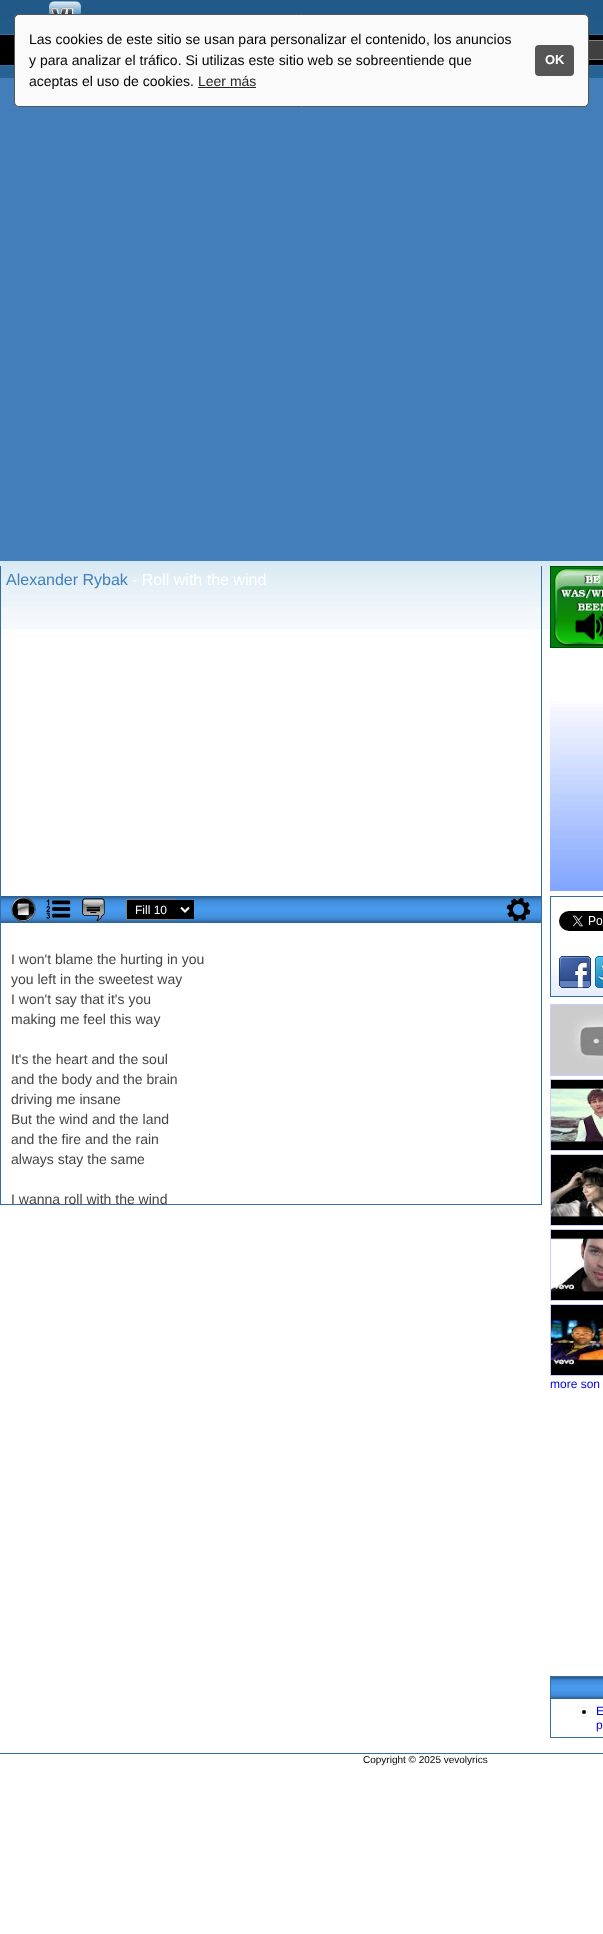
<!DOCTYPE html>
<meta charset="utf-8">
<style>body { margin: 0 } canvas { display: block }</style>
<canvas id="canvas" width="603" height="1934"></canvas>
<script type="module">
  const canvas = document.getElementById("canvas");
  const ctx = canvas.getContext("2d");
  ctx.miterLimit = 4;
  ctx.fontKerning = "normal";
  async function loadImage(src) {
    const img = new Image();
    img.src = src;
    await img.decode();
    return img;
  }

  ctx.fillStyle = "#ffffff";
  ctx.fillRect(0, 0, 603, 1934);
  ctx.drawImage(await loadImage("img1.png"), 0, 0, 603, 637);
  ctx.drawImage(await loadImage("img2.png"), 0, 561, 603, 68);
  ctx.fillStyle = "#000000";
  ctx.fillRect(0, 35, 603, 30);
  ctx.fillStyle = "#336eab";
  ctx.fillRect(0, 34, 603, 1);
  ctx.fillRect(0, 65, 603, 1);
  ctx.fillStyle = "#404040";
  ctx.fillRect(589, 41, 14, 18);
  ctx.strokeStyle = "#808080";
  ctx.strokeRect(367.5, 40.5, 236, 19);
  ctx.fillStyle = "#437ebb";
  ctx.fillRect(0, 78, 603, 483);
  ctx.fillStyle = "#fafafa";
  ctx.beginPath();
  ctx.roundRect(14.5, 14.5, 574, 92, 4.5);
  ctx.fill();
  ctx.strokeStyle = "#555555";
  ctx.stroke();
  ctx.font = "14px Liberation Sans";
  ctx.fillStyle = "#000000";
  ctx.fillText("Las cookies de este sitio se usan para personalizar el contenido, los anuncios", 29, 44);
  ctx.fillText("y para analizar el tráfico. Si utilizas este sitio web se sobreentiende que", 29, 65);
  ctx.fillText("aceptas el uso de cookies.", 29, 86);
  ctx.fillStyle = "#262626";
  ctx.fillText("Leer más", 198, 86);
  ctx.fillRect(198, 87, 58, 1);
  ctx.fillStyle = "#555555";
  ctx.beginPath();
  ctx.roundRect(535, 45, 39, 31, 4);
  ctx.fill();
  ctx.font = "bold 13px Liberation Sans";
  ctx.fillStyle = "#ffffff";
  ctx.fillText("OK", 545, 64);
  ctx.drawImage(await loadImage("img3.png"), 49, 1, 32, 13);
  ctx.fillStyle = "#336eab";
  ctx.fillRect(541, 566, 1, 639);
  ctx.fillRect(0, 566, 1, 378);
  ctx.font = "16px Liberation Sans";
  ctx.fillStyle = "#437ebb";
  ctx.fillText("Alexander Rybak", 6, 585);
  ctx.fillStyle = "#ffffff";
  ctx.fillText("- Roll with the wind", 132, 585);
  ctx.drawImage(await loadImage("img4.png"), 1, 896, 540, 27);
  ctx.drawImage(await loadImage("img5.png"), 11, 897, 25, 25);
  ctx.drawImage(await loadImage("img6.png"), 46, 899, 25, 20);
  ctx.drawImage(await loadImage("img7.png"), 82, 898, 23, 23);
  ctx.fillStyle = "#000000";
  ctx.fillRect(127, 900, 67, 19);
  ctx.beginPath();
  ctx.moveTo(181, 907.5);
  ctx.lineTo(185, 911.5);
  ctx.lineTo(189, 907.5);
  ctx.strokeStyle = "#ffffff";
  ctx.lineWidth = 2;
  ctx.stroke();
  ctx.drawImage(await loadImage("img8.png"), 506, 897, 25, 25);
  ctx.fillStyle = "#808080";
  ctx.fillRect(126, 899, 50, 1);
  ctx.fillRect(126, 919, 50, 1);
  ctx.fillRect(126, 899, 1, 21);
  ctx.font = "12px Liberation Sans";
  ctx.fillStyle = "#ffffff";
  ctx.fillText("Fill 10", 135, 914);
  ctx.fillStyle = "#336eab";
  ctx.fillRect(0, 1204, 542, 1);
  ctx.fillRect(0, 944, 1, 261);
  ctx.font = "14px Liberation Sans";
  ctx.fillStyle = "#444444";
  ctx.fillText("I won't blame the hurting in you", 11, 964);
  ctx.fillText("you left in the sweetest way", 11, 984);
  ctx.fillText("I won't say that it's you", 11, 1004);
  ctx.fillText("making me feel this way", 11, 1024);
  ctx.fillText("It's the heart and the soul", 11, 1064);
  ctx.fillText("and the body and the brain", 11, 1084);
  ctx.fillText("driving me insane", 11, 1104);
  ctx.fillText("But the wind and the land", 11, 1124);
  ctx.fillText("and the fire and the rain", 11, 1144);
  ctx.fillText("always stay the same", 11, 1164);
  ctx.fillText("I wanna roll with the wind", 11, 1204);
  ctx.drawImage(await loadImage("img9.png"), 550, 566, 53, 82);
  ctx.drawImage(await loadImage("img10.png"), 550, 701, 53, 190);
  ctx.drawImage(await loadImage("img11.png"), 551, 965, 52, 31);
  ctx.strokeStyle = "#336eab";
  ctx.lineWidth = 1;
  ctx.strokeRect(550.5, 896.5, 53, 100);
  ctx.drawImage(await loadImage("img12.png"), 559, 911, 44, 20);
  ctx.drawImage(await loadImage("img13.png"), 559, 956, 32, 32);
  ctx.drawImage(await loadImage("img14.png"), 595, 956, 8, 32);
  ctx.strokeStyle = "#ccccff";
  ctx.strokeRect(550.5, 1004.5, 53, 71);
  ctx.drawImage(await loadImage("img15.png"), 551, 1005, 52, 70);
  ctx.strokeRect(550.5, 1079.5, 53, 71);
  ctx.drawImage(await loadImage("img16.png"), 551, 1080, 52, 70);
  ctx.strokeRect(550.5, 1154.5, 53, 71);
  ctx.drawImage(await loadImage("img17.png"), 551, 1155, 52, 70);
  ctx.strokeRect(550.5, 1229.5, 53, 71);
  ctx.drawImage(await loadImage("img18.png"), 551, 1230, 52, 70);
  ctx.strokeRect(550.5, 1304.5, 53, 71);
  ctx.drawImage(await loadImage("img19.png"), 551, 1305, 52, 70);
  ctx.font = "12px Liberation Sans";
  ctx.fillStyle = "#0000ee";
  ctx.fillText("more son", 550, 1388);
  ctx.strokeStyle = "#336eab";
  ctx.strokeRect(550.5, 1676.5, 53, 61);
  ctx.drawImage(await loadImage("img20.png"), 551, 1677, 52, 22);
  ctx.fillStyle = "#000000";
  ctx.beginPath();
  ctx.arc(584, 1712, 2, 0, Math.PI * 2);
  ctx.fill();
  ctx.fillStyle = "#0000ee";
  ctx.fillText("E", 596, 1715);
  ctx.fillText("p", 596, 1729);
  ctx.fillStyle = "#336eab";
  ctx.fillRect(0, 1753, 603, 1);
  ctx.font = "10px Liberation Sans";
  ctx.fillStyle = "#000000";
  ctx.fillText("Copyright © 2025 vevolyrics", 363, 1763);
</script>
